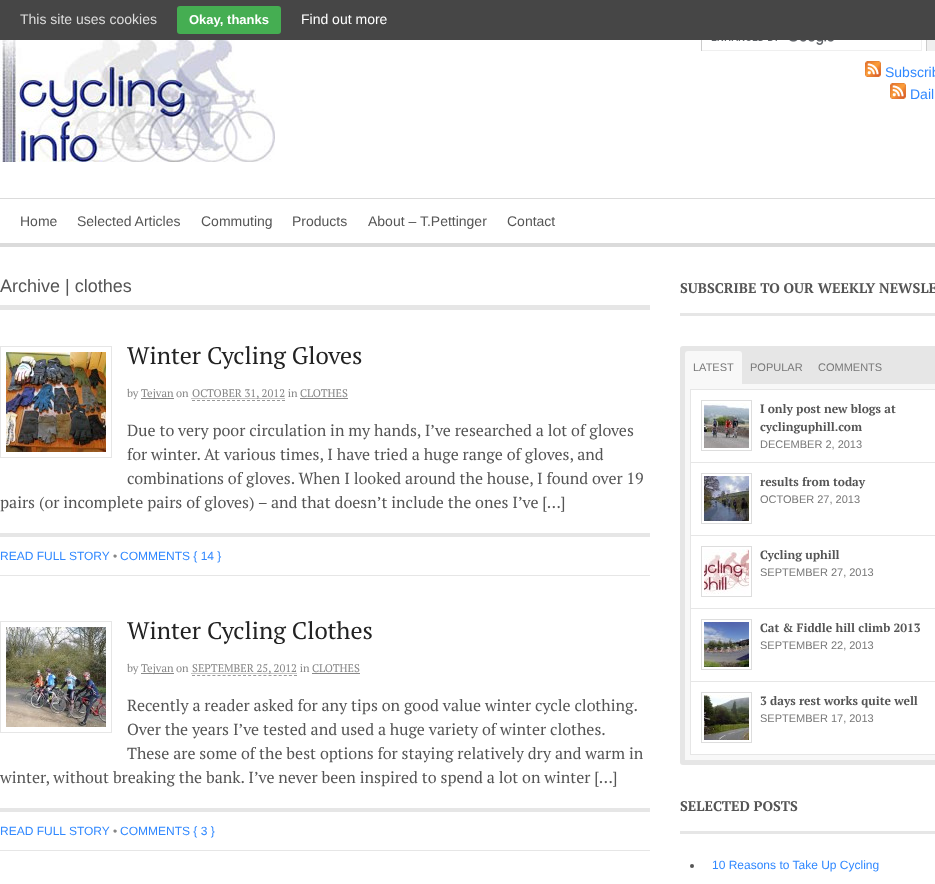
<!DOCTYPE html>
<meta charset="utf-8">
<style>body { margin: 0 } canvas { display: block }</style>
<canvas id="canvas" width="935" height="884"></canvas>
<script type="module">
  const canvas = document.getElementById("canvas");
  const ctx = canvas.getContext("2d");
  ctx.miterLimit = 4;
  ctx.fontKerning = "normal";
  async function loadImage(src) {
    const img = new Image();
    img.src = src;
    await img.decode();
    return img;
  }

  ctx.fillStyle = "#ffffff";
  ctx.fillRect(0, 0, 935, 884);
  ctx.fillStyle = "#464646";
  ctx.fillRect(0, 0, 935, 40);
  ctx.font = "14px Liberation Sans";
  ctx.fillStyle = "#dddddd";
  ctx.fillText("This site uses cookies", 20, 24);
  ctx.fillStyle = "#45ae52";
  ctx.beginPath();
  ctx.roundRect(177, 6, 104, 28, 3);
  ctx.fill();
  ctx.font = "bold 13px Liberation Sans";
  ctx.fillStyle = "#ffffff";
  ctx.fillText("Okay, thanks", 189, 24);
  ctx.font = "14px Liberation Sans";
  ctx.fillText("Find out more", 301, 24);
  ctx.drawImage(await loadImage("img1.png"), 0, 40, 275, 122);
  ctx.drawImage(await loadImage("img2.png"), 711, 40, 123, 5);
  ctx.fillStyle = "#efefef";
  ctx.fillRect(921, 40, 1, 11);
  ctx.fillRect(701, 50, 221, 1);
  ctx.fillStyle = "#cccccc";
  ctx.fillRect(701, 40, 1, 11);
  ctx.fillStyle = "#efefef";
  ctx.fillRect(927, 40, 8, 11);
  ctx.fillStyle = "#cccccc";
  ctx.fillRect(926, 40, 1, 11);
  ctx.drawImage(await loadImage("img3.png"), 865, 61, 16, 16);
  ctx.fillStyle = "#3088ff";
  ctx.fillText("Subscrib", 885, 77);
  ctx.drawImage(await loadImage("img3.png"), 890, 83, 16, 16);
  ctx.fillText("Dail", 910, 99);
  ctx.fillStyle = "#dbdbdb";
  ctx.fillRect(0, 198, 935, 1);
  ctx.fillRect(0, 243, 935, 4);
  ctx.fillStyle = "#555555";
  ctx.fillText("Home", 20, 226);
  ctx.fillText("Selected Articles", 77, 226);
  ctx.fillText("Commuting", 201, 226);
  ctx.fillText("Products", 292, 226);
  ctx.fillText("About – T.Pettinger", 368, 226);
  ctx.fillText("Contact", 507, 226);
  ctx.fillStyle = "#e6e6e6";
  ctx.fillRect(0, 305, 650, 5);
  ctx.font = "18px Liberation Sans";
  ctx.fillStyle = "#555555";
  ctx.fillText("Archive | clothes", 0, 292);
  ctx.strokeStyle = "#e6e6e6";
  ctx.strokeRect(0.5, 346.5, 111, 111);
  ctx.drawImage(await loadImage("img4.png"), 6, 352, 100, 100);
  ctx.font = "24px PT Serif";
  ctx.fillStyle = "#222222";
  ctx.fillText("Winter Cycling Gloves", 127, 364);
  ctx.font = "11px PT Serif";
  ctx.fillStyle = "#868686";
  ctx.fillText("by", 127, 397);
  ctx.fillStyle = "#888888";
  ctx.fillRect(141, 398, 33, 1);
  ctx.fillStyle = "#868686";
  ctx.fillText("Tejvan", 141, 397);
  ctx.fillText("on", 176, 397);
  ctx.beginPath();
  ctx.moveTo(191.5, 398.5);
  ctx.lineTo(284.5, 398.5);
  ctx.strokeStyle = "#868686";
  ctx.setLineDash([1, 1]);
  ctx.stroke();
  ctx.fillText("OCTOBER 31, 2012 in", 192, 397);
  ctx.beginPath();
  ctx.moveTo(192, 400.5);
  ctx.lineTo(285, 400.5);
  ctx.strokeStyle = "#999999";
  ctx.setLineDash([3, 2]);
  ctx.stroke();
  ctx.fillText("CLOTHES", 300, 397);
  ctx.fillStyle = "#888888";
  ctx.fillRect(300, 398, 48, 1);
  ctx.font = "16px PT Serif";
  ctx.fillStyle = "#555555";
  ctx.fillText("Due to very poor circulation in my hands, I’ve researched a lot of gloves", 127, 436);
  ctx.fillText("for winter. At various times, I have tried a huge range of gloves, and", 127, 460);
  ctx.fillText("combinations of gloves. When I looked around the house, I found over 19", 127, 484);
  ctx.fillText("pairs (or incomplete pairs of gloves) – and that doesn’t include the ones I’ve […]", 0, 508);
  ctx.fillStyle = "#e6e6e6";
  ctx.fillRect(0, 533, 650, 4);
  ctx.fillRect(0, 575, 650, 1);
  ctx.font = "12px Liberation Sans";
  ctx.fillStyle = "#3088ff";
  ctx.fillText("READ FULL STORY", 0, 560);
  ctx.fillStyle = "#868686";
  ctx.fillText("•", 113, 560);
  ctx.fillStyle = "#3088ff";
  ctx.fillText("COMMENTS { 14 }", 120, 560);
  ctx.strokeStyle = "#e6e6e6";
  ctx.setLineDash([]);
  ctx.strokeRect(0.5, 621.5, 111, 111);
  ctx.drawImage(await loadImage("img5.png"), 6, 627, 100, 100);
  ctx.font = "24px PT Serif";
  ctx.fillStyle = "#222222";
  ctx.fillText("Winter Cycling Clothes", 127, 639);
  ctx.font = "11px PT Serif";
  ctx.fillStyle = "#868686";
  ctx.fillText("by", 127, 672);
  ctx.fillStyle = "#888888";
  ctx.fillRect(141, 673, 33, 1);
  ctx.fillStyle = "#868686";
  ctx.fillText("Tejvan", 141, 672);
  ctx.fillText("on", 176, 672);
  ctx.beginPath();
  ctx.moveTo(191.5, 673.5);
  ctx.lineTo(296.5, 673.5);
  ctx.strokeStyle = "#868686";
  ctx.setLineDash([1, 1]);
  ctx.stroke();
  ctx.fillText("SEPTEMBER 25, 2012 in", 192, 672);
  ctx.beginPath();
  ctx.moveTo(192, 675.5);
  ctx.lineTo(297, 675.5);
  ctx.strokeStyle = "#999999";
  ctx.setLineDash([3, 2.1]);
  ctx.stroke();
  ctx.fillText("CLOTHES", 312, 672);
  ctx.fillStyle = "#888888";
  ctx.fillRect(312, 673, 48, 1);
  ctx.font = "16px PT Serif";
  ctx.fillStyle = "#555555";
  ctx.fillText("Recently a reader asked for any tips on good value winter cycle clothing.", 127, 711);
  ctx.fillText("Over the years I’ve tested and used a huge variety of winter clothes.", 127, 735);
  ctx.fillText("These are some of the best options for staying relatively dry and warm in", 127, 759);
  ctx.fillText("winter, without breaking the bank. I’ve never been inspired to spend a lot on winter […]", 0, 783);
  ctx.fillStyle = "#e6e6e6";
  ctx.fillRect(0, 808, 650, 4);
  ctx.fillRect(0, 850, 650, 1);
  ctx.font = "12px Liberation Sans";
  ctx.fillStyle = "#3088ff";
  ctx.fillText("READ FULL STORY", 0, 835);
  ctx.fillStyle = "#868686";
  ctx.fillText("•", 113, 835);
  ctx.fillStyle = "#3088ff";
  ctx.fillText("COMMENTS { 3 }", 120, 835);
  ctx.fillStyle = "#e6e6e6";
  ctx.fillRect(680, 313, 255, 3);
  ctx.font = "bold 14px PT Serif";
  ctx.fillStyle = "#555555";
  ctx.fillText("SUBSCRIBE TO OUR WEEKLY NEWSLE", 680, 293);
  ctx.fillStyle = "#e6e6e6";
  ctx.beginPath();
  ctx.roundRect(680, 346, 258, 419, 3);
  ctx.fill();
  ctx.fillStyle = "#f8f8f8";
  ctx.beginPath();
  ctx.roundRect(685, 351, 57, 33, [3, 3, 0, 0]);
  ctx.fill();
  ctx.font = "11px Liberation Sans";
  ctx.fillStyle = "#777777";
  ctx.fillText("LATEST", 693, 371);
  ctx.fillText("POPULAR", 750, 371);
  ctx.fillText("COMMENTS", 818, 371);
  ctx.fillStyle = "#f8f8f8";
  ctx.fillRect(685, 384, 250, 376);
  ctx.fillStyle = "#e6e6e6";
  ctx.fillRect(690, 389, 245, 1);
  ctx.fillRect(690, 754, 245, 1);
  ctx.fillStyle = "#ffffff";
  ctx.fillRect(691, 390, 244, 72);
  ctx.fillStyle = "#e6e6e6";
  ctx.fillRect(690, 462, 245, 1);
  ctx.fillRect(690, 390, 1, 73);
  ctx.strokeStyle = "#dddddd";
  ctx.setLineDash([]);
  ctx.strokeRect(701.5, 400.5, 50, 50);
  ctx.drawImage(await loadImage("img6.png"), 704, 403, 45, 45);
  ctx.font = "bold 12px PT Serif";
  ctx.fillStyle = "#555555";
  ctx.fillText("I only post new blogs at", 760, 413);
  ctx.fillText("cyclinguphill.com", 760, 431);
  ctx.font = "11px Liberation Sans";
  ctx.fillStyle = "#777777";
  ctx.fillText("DECEMBER 2, 2013", 760, 448);
  ctx.fillStyle = "#ffffff";
  ctx.fillRect(691, 463, 244, 72);
  ctx.fillStyle = "#e6e6e6";
  ctx.fillRect(690, 535, 245, 1);
  ctx.fillRect(690, 463, 1, 73);
  ctx.strokeRect(701.5, 473.5, 50, 50);
  ctx.drawImage(await loadImage("img7.png"), 704, 476, 45, 45);
  ctx.font = "bold 12px PT Serif";
  ctx.fillStyle = "#555555";
  ctx.fillText("results from today", 760, 486);
  ctx.font = "11px Liberation Sans";
  ctx.fillStyle = "#777777";
  ctx.fillText("OCTOBER 27, 2013", 760, 503);
  ctx.fillStyle = "#ffffff";
  ctx.fillRect(691, 536, 244, 72);
  ctx.fillStyle = "#e6e6e6";
  ctx.fillRect(690, 608, 245, 1);
  ctx.fillRect(690, 536, 1, 73);
  ctx.strokeRect(701.5, 546.5, 50, 50);
  ctx.drawImage(await loadImage("img8.png"), 704, 549, 45, 45);
  ctx.font = "bold 12px PT Serif";
  ctx.fillStyle = "#555555";
  ctx.fillText("Cycling uphill", 760, 559);
  ctx.font = "11px Liberation Sans";
  ctx.fillStyle = "#777777";
  ctx.fillText("SEPTEMBER 27, 2013", 760, 576);
  ctx.fillStyle = "#ffffff";
  ctx.fillRect(691, 609, 244, 72);
  ctx.fillStyle = "#e6e6e6";
  ctx.fillRect(690, 681, 245, 1);
  ctx.fillRect(690, 609, 1, 145);
  ctx.strokeRect(701.5, 619.5, 50, 50);
  ctx.drawImage(await loadImage("img9.png"), 704, 622, 45, 45);
  ctx.font = "bold 12px PT Serif";
  ctx.fillStyle = "#555555";
  ctx.fillText("Cat & Fiddle hill climb 2013", 760, 632);
  ctx.font = "11px Liberation Sans";
  ctx.fillStyle = "#777777";
  ctx.fillText("SEPTEMBER 22, 2013", 760, 649);
  ctx.fillStyle = "#ffffff";
  ctx.fillRect(691, 682, 244, 72);
  ctx.strokeRect(701.5, 692.5, 50, 50);
  ctx.drawImage(await loadImage("img10.png"), 704, 695, 45, 45);
  ctx.font = "bold 12px PT Serif";
  ctx.fillStyle = "#555555";
  ctx.fillText("3 days rest works quite well", 760, 705);
  ctx.font = "11px Liberation Sans";
  ctx.fillStyle = "#777777";
  ctx.fillText("SEPTEMBER 17, 2013", 760, 722);
  ctx.fillStyle = "#e6e6e6";
  ctx.fillRect(680, 831, 255, 3);
  ctx.font = "bold 14px PT Serif";
  ctx.fillStyle = "#555555";
  ctx.fillText("SELECTED POSTS", 680, 811);
  ctx.beginPath();
  ctx.arc(692, 866, 2, 0, Math.PI * 2);
  ctx.fill();
  ctx.font = "12px Liberation Sans";
  ctx.fillStyle = "#3088ff";
  ctx.fillText("10 Reasons to Take Up Cycling", 712, 869);
</script>
